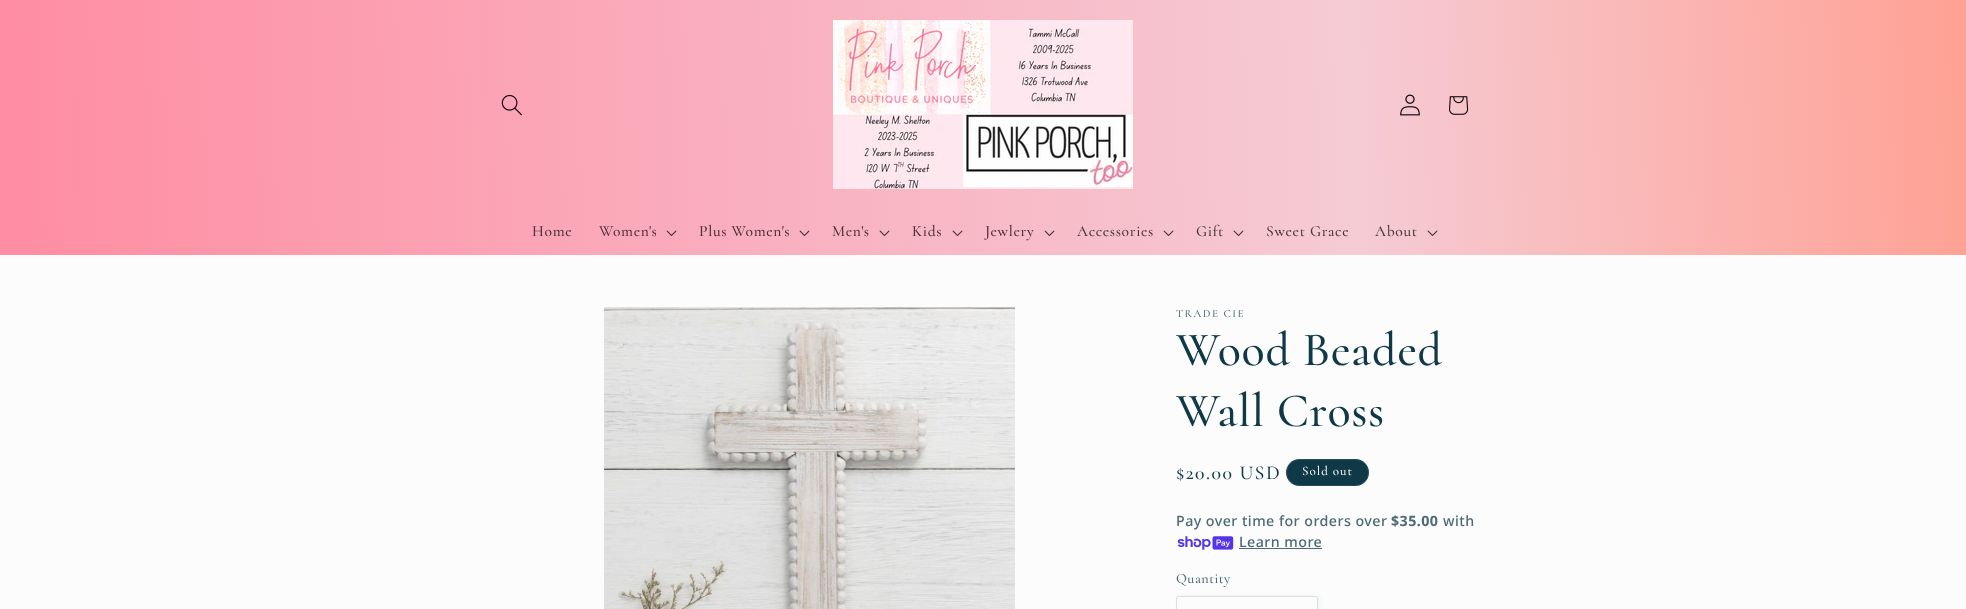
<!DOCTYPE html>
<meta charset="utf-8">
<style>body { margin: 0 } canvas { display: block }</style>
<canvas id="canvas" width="1966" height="609"></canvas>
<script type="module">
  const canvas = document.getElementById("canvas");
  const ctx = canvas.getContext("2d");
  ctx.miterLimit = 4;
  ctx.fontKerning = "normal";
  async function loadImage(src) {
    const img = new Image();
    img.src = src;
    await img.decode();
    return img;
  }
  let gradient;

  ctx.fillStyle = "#fcfcfc";
  ctx.fillRect(0, 0, 1966, 609);
  gradient = ctx.createLinearGradient(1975, 270, -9, 339);
  gradient.addColorStop(0, "#ffa194");
  gradient.addColorStop(0.31, "#f5cbd4");
  gradient.addColorStop(1, "#ff8ca2");
  ctx.fillStyle = gradient;
  ctx.fillRect(0, 0, 1966, 255);
  ctx.drawImage(await loadImage("img1.png"), 501, 94, 21, 22);
  ctx.drawImage(await loadImage("img2.png"), 833, 20, 300, 169);
  ctx.drawImage(await loadImage("img3.png"), 1400, 94, 20, 22);
  ctx.drawImage(await loadImage("img4.png"), 1449, 96, 20, 19);
  ctx.letterSpacing = "0.7px";
  ctx.font = "500 15.5px Cormorant";
  ctx.fillStyle = "#492c34";
  ctx.fillText("Home", 532, 236);
  ctx.fillText("Women's", 599, 236);
  ctx.drawImage(await loadImage("img5.png"), 666, 230, 11, 6);
  ctx.fillText("Plus Women's", 699, 236);
  ctx.drawImage(await loadImage("img6.png"), 799, 230, 11, 6);
  ctx.fillText("Men's", 832, 236);
  ctx.drawImage(await loadImage("img7.png"), 879, 230, 11, 6);
  ctx.fillText("Kids", 912, 236);
  ctx.drawImage(await loadImage("img8.png"), 952, 230, 11, 6);
  ctx.fillText("Jewlery", 985, 236);
  ctx.drawImage(await loadImage("img9.png"), 1044, 230, 11, 6);
  ctx.fillStyle = "#47343b";
  ctx.fillText("Accessories", 1077, 236);
  ctx.drawImage(await loadImage("img10.png"), 1163, 230, 11, 6);
  ctx.fillText("Gift", 1196, 236);
  ctx.drawImage(await loadImage("img11.png"), 1233, 230, 11, 6);
  ctx.fillText("Sweet Grace", 1266, 236);
  ctx.fillText("About", 1375, 236);
  ctx.drawImage(await loadImage("img12.png"), 1427, 230, 11, 6);
  ctx.drawImage(await loadImage("img13.png"), 604, 307, 411, 302);
  ctx.letterSpacing = "1.5px";
  ctx.font = "500 11px Cormorant";
  ctx.fillStyle = "#4b6a75";
  ctx.fillText("TRADE CIE", 1176, 317);
  ctx.letterSpacing = "0.75px";
  ctx.font = "500 48px Cormorant";
  ctx.fillStyle = "#103948";
  ctx.fillText("Wood Beaded", 1176, 365);
  ctx.fillText("Wall Cross", 1176, 426);
  ctx.letterSpacing = "1.5px";
  ctx.font = "500 19.75px Cormorant";
  ctx.fillText("$20.00 USD", 1176, 479);
  ctx.beginPath();
  ctx.roundRect(1286, 459, 83, 27, 13.5);
  ctx.fill();
  ctx.beginPath();
  ctx.roundRect(1286.5, 459.5, 82, 26, 13);
  ctx.strokeStyle = "rgba(252, 252, 252, 0.1)";
  ctx.stroke();
  ctx.letterSpacing = "1px";
  ctx.font = "500 13px Cormorant";
  ctx.fillStyle = "#fcfcfc";
  ctx.fillText("Sold out", 1302, 475);
  ctx.letterSpacing = "0.45px";
  ctx.font = "500 14.25px Noto Sans";
  ctx.fillStyle = "#4b6a75";
  ctx.fillText("Pay over time for orders over", 1176, 526);
  ctx.font = "bold 14.25px Noto Sans";
  ctx.fillText("$35.00", 1391, 526);
  ctx.font = "500 14.25px Noto Sans";
  ctx.fillText("with", 1443, 526);
  ctx.drawImage(await loadImage("img14.png"), 1177, 536, 57, 14);
  ctx.fillText("Learn more", 1239, 547);
  ctx.fillRect(1239, 548, 83, 1);
  ctx.font = "500 14.25px Cormorant";
  ctx.fillText("Quantity", 1176, 583);
  ctx.fillStyle = "rgba(16, 57, 72, 0.05)";
  ctx.filter = "blur(2.5px)";
  ctx.beginPath();
  ctx.roundRect(1178, 596, 142, 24, 3);
  ctx.fill();
  ctx.filter = "none";
  ctx.fillStyle = "#fcfcfc";
  ctx.beginPath();
  ctx.roundRect(1176.5, 596.5, 141, 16, 2.5);
  ctx.fill();
  ctx.strokeStyle = "#d9dfe1";
  ctx.stroke();
</script>
